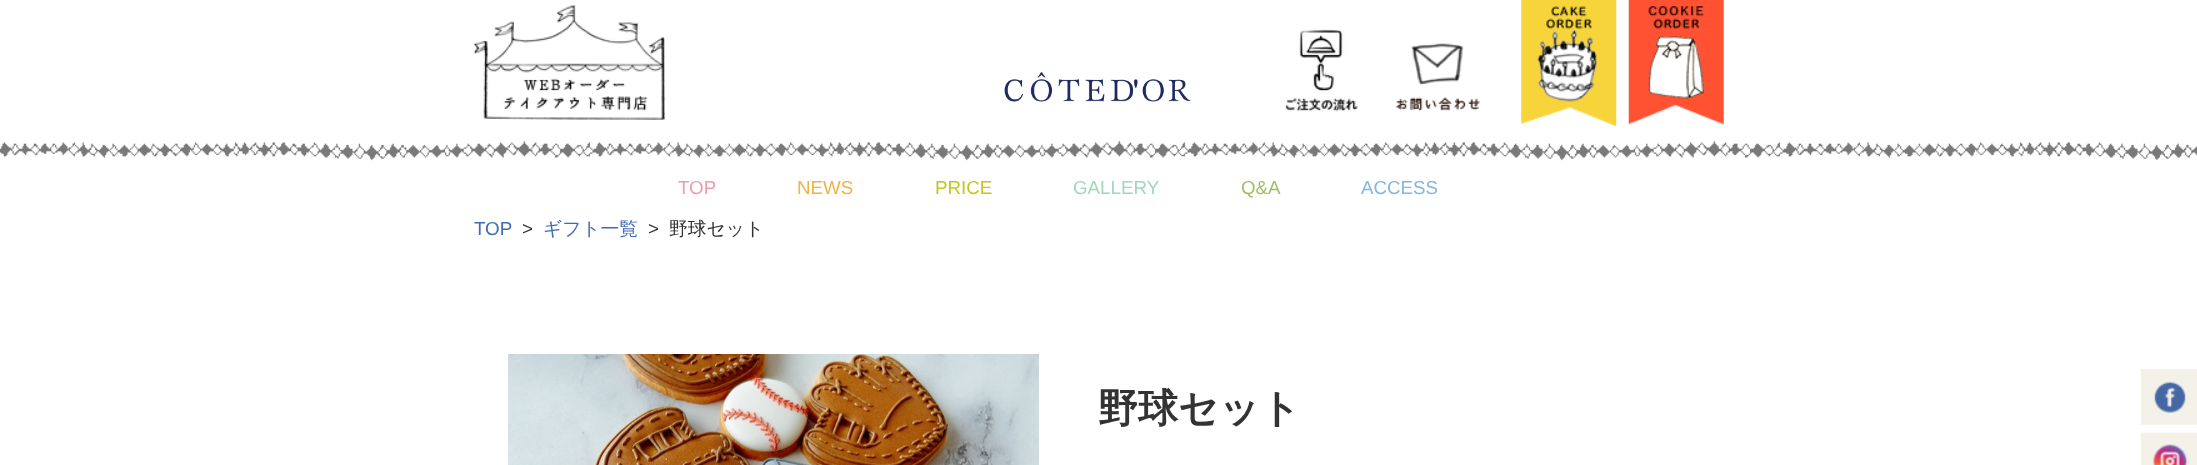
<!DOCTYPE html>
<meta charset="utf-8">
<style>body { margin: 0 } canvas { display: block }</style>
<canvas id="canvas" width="2197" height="465"></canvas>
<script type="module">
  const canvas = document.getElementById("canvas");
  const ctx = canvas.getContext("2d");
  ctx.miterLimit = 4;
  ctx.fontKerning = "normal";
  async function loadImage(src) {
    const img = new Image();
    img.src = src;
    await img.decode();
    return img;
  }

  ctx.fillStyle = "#ffffff";
  ctx.fillRect(0, 0, 2197, 465);
  ctx.drawImage(await loadImage("img1.png"), 473, 5, 192, 115);
  ctx.drawImage(await loadImage("img2.png"), 1004, 72, 187, 30);
  ctx.drawImage(await loadImage("img3.png"), 1285, 29, 73, 83);
  ctx.drawImage(await loadImage("img4.png"), 1396, 43, 84, 68);
  ctx.drawImage(await loadImage("img5.png"), 1521, 0, 96, 127);
  ctx.drawImage(await loadImage("img6.png"), 1628, 0, 96, 126);
  ctx.drawImage(await loadImage("img7.png"), 0, 141, 2197, 20);
  ctx.font = "18.75px Liberation Sans";
  ctx.fillStyle = "#ee9cac";
  ctx.fillText("TOP", 678, 194);
  ctx.fillStyle = "#f2b247";
  ctx.fillText("NEWS", 797, 194);
  ctx.fillStyle = "#c8c321";
  ctx.fillText("PRICE", 935, 194);
  ctx.fillStyle = "#9fd8bf";
  ctx.fillText("GALLERY", 1073, 194);
  ctx.fillStyle = "#9ebf62";
  ctx.fillText("Q&A", 1241, 194);
  ctx.fillStyle = "#84b8de";
  ctx.fillText("ACCESS", 1361, 194);
  ctx.fillStyle = "#3f6db3";
  ctx.fillText("TOP", 474, 235);
  ctx.fillStyle = "#333333";
  ctx.fillText(">", 522, 235);
  ctx.font = "500 18.75px WenQuanYi Zen Hei";
  ctx.fillStyle = "#3f6db3";
  ctx.fillText("ギフト一覧", 543, 235);
  ctx.font = "18.75px Liberation Sans";
  ctx.fillStyle = "#333333";
  ctx.fillText(">", 648, 235);
  ctx.font = "500 18.75px WenQuanYi Zen Hei";
  ctx.fillText("野球セット", 669, 235);
  ctx.drawImage(await loadImage("img8.png"), 508, 354, 531, 111);
  ctx.font = "bold 40px WenQuanYi Zen Hei";
  ctx.fillText("野球セット", 1098, 422);
  ctx.drawImage(await loadImage("img9.png"), 2141, 369, 56, 56);
  ctx.drawImage(await loadImage("img10.png"), 2141, 432, 56, 33);
</script>
